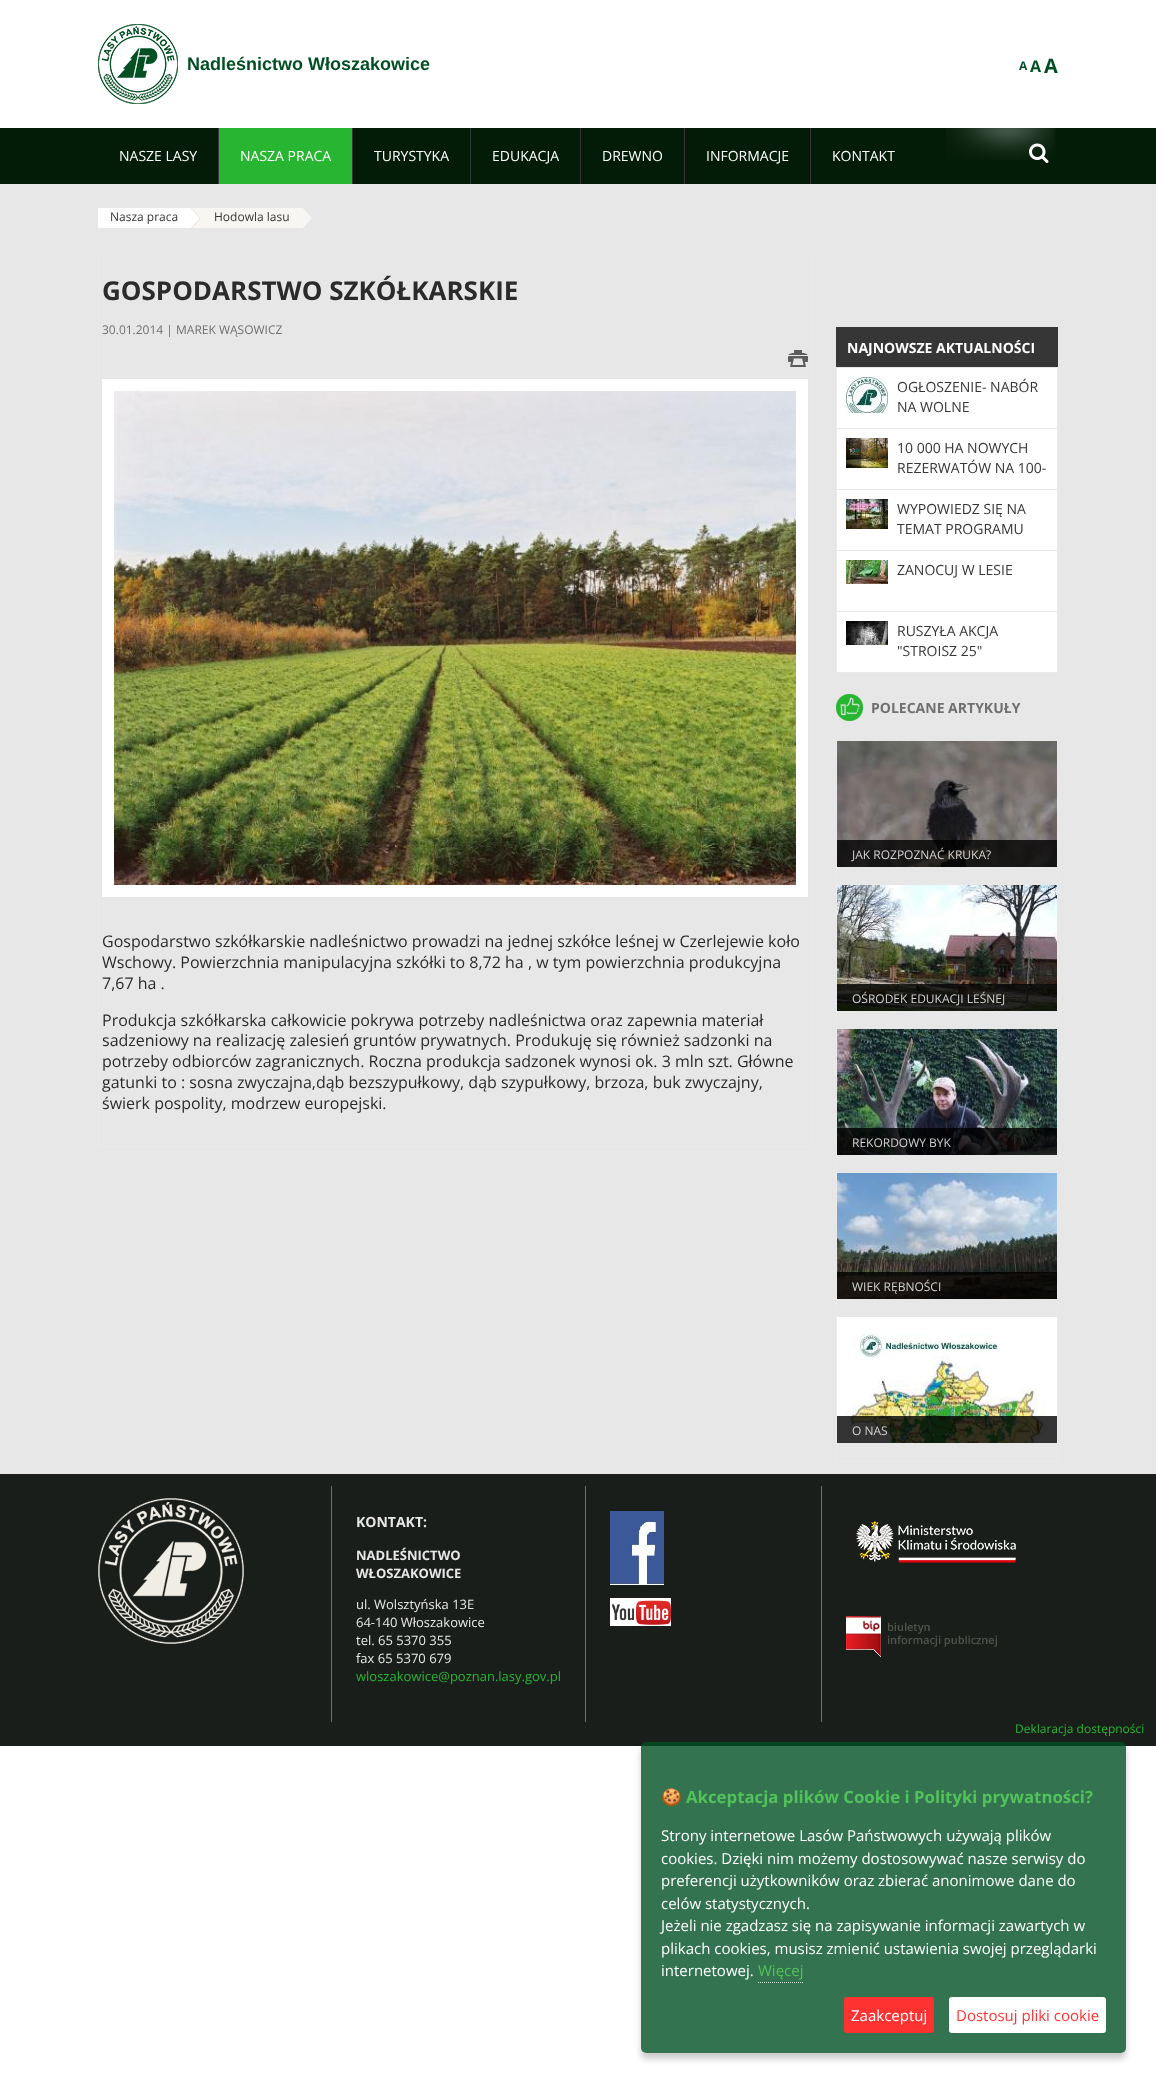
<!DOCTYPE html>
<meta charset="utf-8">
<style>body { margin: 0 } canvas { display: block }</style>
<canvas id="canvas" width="1156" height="2083"></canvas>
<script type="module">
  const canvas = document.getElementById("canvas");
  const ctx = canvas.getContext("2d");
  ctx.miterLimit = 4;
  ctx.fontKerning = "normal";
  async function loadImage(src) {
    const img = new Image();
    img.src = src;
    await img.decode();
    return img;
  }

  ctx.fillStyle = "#ffffff";
  ctx.fillRect(0, 0, 1156, 2083);
  ctx.drawImage(await loadImage("img1.png"), 98, 24, 80, 80);
  ctx.font = "bold 18px Liberation Sans";
  ctx.fillStyle = "#005023";
  ctx.fillText("Nadleśnictwo Włoszakowice", 187, 70);
  ctx.font = "bold 12px Open Sans";
  ctx.fillText("A", 1019, 70);
  ctx.font = "bold 16px Open Sans";
  ctx.fillText("A", 1030, 72);
  ctx.font = "bold 20px Open Sans";
  ctx.fillText("A", 1044, 73);
  ctx.fillStyle = "#031c07";
  ctx.fillRect(0, 128, 1156, 56);
  ctx.drawImage(await loadImage("img2.png"), 946, 128, 110, 32);
  ctx.fillStyle = "#363636";
  ctx.fillRect(218, 128, 1, 56);
  ctx.font = "14px Open Sans";
  ctx.fillStyle = "#ffffff";
  ctx.fillText("NASZE LASY", 119, 161);
  ctx.fillStyle = "#363636";
  ctx.fillRect(352, 128, 1, 56);
  ctx.fillStyle = "#28b532";
  ctx.fillRect(219, 128, 133, 56);
  ctx.fillStyle = "#ffffff";
  ctx.fillText("NASZA PRACA", 240, 161);
  ctx.fillStyle = "#363636";
  ctx.fillRect(470, 128, 1, 56);
  ctx.fillStyle = "#ffffff";
  ctx.fillText("TURYSTYKA", 374, 161);
  ctx.fillStyle = "#363636";
  ctx.fillRect(580, 128, 1, 56);
  ctx.fillStyle = "#ffffff";
  ctx.fillText("EDUKACJA", 492, 161);
  ctx.fillStyle = "#363636";
  ctx.fillRect(684, 128, 1, 56);
  ctx.fillStyle = "#ffffff";
  ctx.fillText("DREWNO", 602, 161);
  ctx.fillStyle = "#363636";
  ctx.fillRect(810, 128, 1, 56);
  ctx.fillStyle = "#ffffff";
  ctx.fillText("INFORMACJE", 706, 161);
  ctx.fillText("KONTAKT", 832, 161);
  ctx.drawImage(await loadImage("img3.png"), 1029, 143, 20, 20);
  ctx.fillStyle = "#e7e7e7";
  ctx.fillRect(0, 184, 1156, 1290);
  ctx.fillStyle = "#ffffff";
  ctx.fillRect(98, 208, 92, 20);
  ctx.font = "12px Open Sans";
  ctx.fillStyle = "#363636";
  ctx.fillText("Nasza praca", 110, 221);
  ctx.fillStyle = "#f8f6f2";
  ctx.fillRect(190, 208, 112, 20);
  ctx.drawImage(await loadImage("img4.png"), 190, 208, 10, 20);
  ctx.fillStyle = "#363636";
  ctx.fillText("Hodowla lasu", 214, 221);
  ctx.drawImage(await loadImage("img5.png"), 302, 208, 10, 20);
  ctx.fillStyle = "#eaeaea";
  ctx.fillRect(811, 254, 1, 893);
  ctx.fillRect(98, 1146, 714, 1);
  ctx.fillRect(98, 254, 1, 893);
  ctx.font = "bold 26px Open Sans";
  ctx.fillStyle = "#2b2b2b";
  ctx.fillText("GOSPODARSTWO SZKÓŁKARSKIE", 102, 300);
  ctx.font = "12px Open Sans";
  ctx.fillStyle = "#707070";
  ctx.fillText("30.01.2014 | MAREK WĄSOWICZ", 102, 334);
  ctx.drawImage(await loadImage("img6.png"), 788, 350, 20, 17);
  ctx.strokeStyle = "#ffffff";
  ctx.lineWidth = 12;
  ctx.strokeRect(108, 385, 694, 506);
  ctx.drawImage(await loadImage("img7.png"), 114, 391, 682, 494);
  ctx.font = "16px Open Sans";
  ctx.fillStyle = "#2b2b2b";
  ctx.fillText("Gospodarstwo szkółkarskie nadleśnictwo prowadzi na jednej szkółce leśnej w Czerlejewie koło", 102, 947);
  ctx.fillText("Wschowy. Powierzchnia manipulacyjna szkółki to 8,72 ha , w tym powierzchnia produkcyjna", 102, 968);
  ctx.fillText("7,67 ha .", 102, 989);
  ctx.fillText("Produkcja szkółkarska całkowicie pokrywa potrzeby nadleśnictwa oraz zapewnia materiał", 102, 1026);
  ctx.fillText("sadzeniowy na realizację zalesień gruntów prywatnych. Produkuję się również sadzonki na", 102, 1046);
  ctx.fillText("potrzeby odbiorców zagranicznych. Roczna produkcja sadzonek wynosi ok. 3 mln szt. Główne", 102, 1067);
  ctx.fillText("gatunki to : sosna zwyczajna,dąb bezszypułkowy, dąb szypułkowy, brzoza, buk zwyczajny,", 102, 1088);
  ctx.fillText("świerk pospolity, modrzew europejski.", 102, 1109);
  ctx.fillStyle = "#363636";
  ctx.fillRect(836, 327, 222, 40);
  ctx.font = "bold 14px Open Sans";
  ctx.fillStyle = "#ffffff";
  ctx.fillText("NAJNOWSZE AKTUALNOŚCI", 847, 353);
  ctx.fillStyle = "#eaeaea";
  ctx.fillRect(1057, 367, 1, 306);
  ctx.fillRect(836, 672, 222, 1);
  ctx.fillRect(836, 367, 1, 306);
  ctx.fillStyle = "#ffffff";
  ctx.fillRect(837, 368, 220, 60);
  ctx.drawImage(await loadImage("img8.png"), 846, 377, 42, 36);
  ctx.font = "14px Open Sans";
  ctx.fillStyle = "#363636";
  ctx.fillText("OGŁOSZENIE- NABÓR", 897, 392);
  ctx.fillText("NA WOLNE", 897, 412);
  ctx.fillStyle = "#ffffff";
  ctx.fillRect(837, 429, 220, 60);
  ctx.drawImage(await loadImage("img9.png"), 846, 438, 42, 30);
  ctx.fillStyle = "#363636";
  ctx.fillText("10 000 HA NOWYCH", 897, 453);
  ctx.fillText("REZERWATÓW NA 100-", 897, 473);
  ctx.fillStyle = "#ffffff";
  ctx.fillRect(837, 490, 220, 60);
  ctx.drawImage(await loadImage("img10.png"), 846, 499, 42, 30);
  ctx.fillStyle = "#363636";
  ctx.fillText("WYPOWIEDZ SIĘ NA", 897, 514);
  ctx.fillText("TEMAT PROGRAMU", 897, 534);
  ctx.fillStyle = "#ffffff";
  ctx.fillRect(837, 551, 220, 60);
  ctx.drawImage(await loadImage("img11.png"), 846, 560, 42, 24);
  ctx.fillStyle = "#363636";
  ctx.fillText("ZANOCUJ W LESIE", 897, 575);
  ctx.fillStyle = "#ffffff";
  ctx.fillRect(837, 612, 220, 60);
  ctx.drawImage(await loadImage("img12.png"), 846, 621, 42, 24);
  ctx.fillStyle = "#363636";
  ctx.fillText("RUSZYŁA AKCJA", 897, 636);
  ctx.fillText("\"STROISZ 25\"", 897, 656);
  ctx.drawImage(await loadImage("img13.png"), 836, 694, 27, 27);
  ctx.font = "bold 14px Open Sans";
  ctx.fillStyle = "#707070";
  ctx.fillText("POLECANE ARTYKUŁY", 871, 713);
  ctx.fillStyle = "#eaeaea";
  ctx.fillRect(1057, 741, 1, 721);
  ctx.fillRect(836, 1461, 222, 1);
  ctx.fillRect(836, 741, 1, 721);
  ctx.drawImage(await loadImage("img14.png"), 837, 741, 220, 126);
  ctx.fillStyle = "rgba(0, 0, 0, 0.8)";
  ctx.fillRect(837, 840, 220, 27);
  ctx.font = "12px Open Sans";
  ctx.fillStyle = "#d1d1d1";
  ctx.fillText("JAK ROZPOZNAĆ KRUKA?", 852, 859);
  ctx.drawImage(await loadImage("img15.png"), 837, 885, 220, 126);
  ctx.fillStyle = "rgba(0, 0, 0, 0.8)";
  ctx.fillRect(837, 984, 220, 27);
  ctx.fillStyle = "#d1d1d1";
  ctx.fillText("OŚRODEK EDUKACJI LEŚNEJ", 852, 1003);
  ctx.drawImage(await loadImage("img16.png"), 837, 1029, 220, 126);
  ctx.fillStyle = "rgba(0, 0, 0, 0.8)";
  ctx.fillRect(837, 1128, 220, 27);
  ctx.fillStyle = "#d1d1d1";
  ctx.fillText("REKORDOWY BYK", 852, 1147);
  ctx.drawImage(await loadImage("img17.png"), 837, 1173, 220, 126);
  ctx.fillStyle = "rgba(0, 0, 0, 0.8)";
  ctx.fillRect(837, 1272, 220, 27);
  ctx.fillStyle = "#d1d1d1";
  ctx.fillText("WIEK RĘBNOŚCI", 852, 1291);
  ctx.drawImage(await loadImage("img18.png"), 837, 1317, 220, 126);
  ctx.fillStyle = "rgba(0, 0, 0, 0.8)";
  ctx.fillRect(837, 1416, 220, 27);
  ctx.fillStyle = "#d1d1d1";
  ctx.fillText("O NAS", 852, 1435);
  ctx.fillStyle = "#1a1e1b";
  ctx.fillRect(0, 1474, 1156, 272);
  ctx.fillStyle = "#707070";
  ctx.fillRect(331, 1486, 1, 236);
  ctx.drawImage(await loadImage("img19.png"), 98, 1498, 146, 146);
  ctx.fillRect(585, 1486, 1, 236);
  ctx.font = "bold 14px Open Sans";
  ctx.fillStyle = "#e7e7e7";
  ctx.fillText("KONTAKT:", 356, 1527);
  ctx.font = "bold 13px Open Sans";
  ctx.fillText("NADLEŚNICTWO", 356, 1560);
  ctx.fillText("WŁOSZAKOWICE", 356, 1578);
  ctx.font = "13px Open Sans";
  ctx.fillText("ul. Wolsztyńska 13E", 356, 1609);
  ctx.fillText("64-140 Włoszakowice", 356, 1627);
  ctx.fillText("tel. 65 5370 355", 356, 1645);
  ctx.fillText("fax 65 5370 679", 356, 1663);
  ctx.fillStyle = "#28b532";
  ctx.fillText("wloszakowice@poznan.lasy.gov.pl", 356, 1681);
  ctx.fillStyle = "#707070";
  ctx.fillRect(821, 1486, 1, 236);
  ctx.drawImage(await loadImage("img20.png"), 610, 1511, 54, 74);
  ctx.drawImage(await loadImage("img21.png"), 610, 1598, 61, 28);
  ctx.drawImage(await loadImage("img22.png"), 856, 1521, 160, 42);
  ctx.drawImage(await loadImage("img23.png"), 846, 1616, 151, 41);
  ctx.font = "12px Open Sans";
  ctx.fillStyle = "#28b532";
  ctx.fillText("Deklaracja dostępności", 1015, 1733);
  ctx.save();
  ctx.beginPath();
  ctx.moveTo(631, 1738);
  ctx.lineTo(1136, 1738);
  ctx.lineTo(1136, 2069);
  ctx.lineTo(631, 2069);
  ctx.closePath();
  ctx.moveTo(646, 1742);
  ctx.lineTo(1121, 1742);
  ctx.bezierCurveTo(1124, 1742, 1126, 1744, 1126, 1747);
  ctx.lineTo(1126, 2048);
  ctx.bezierCurveTo(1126, 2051, 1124, 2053, 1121, 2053);
  ctx.lineTo(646, 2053);
  ctx.bezierCurveTo(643, 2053, 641, 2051, 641, 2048);
  ctx.lineTo(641, 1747);
  ctx.bezierCurveTo(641, 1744, 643, 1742, 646, 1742);
  ctx.closePath();
  ctx.clip("evenodd");
  ctx.fillStyle = "rgba(0, 0, 0, 0.2)";
  ctx.filter = "blur(3px)";
  ctx.beginPath();
  ctx.roundRect(641, 1748, 485, 311, 5);
  ctx.fill();
  ctx.filter = "none";
  ctx.restore();
  ctx.fillStyle = "rgba(0, 80, 35, 0.8)";
  ctx.beginPath();
  ctx.roundRect(641, 1742, 485, 311, 5);
  ctx.fill();
  ctx.font = "bold 16.8px Noto Color Emoji";
  ctx.fillStyle = "#52c35a";
  ctx.fillText("🍪", 661, 1803);
  ctx.font = "bold 16.8px Open Sans";
  ctx.fillText("Akceptacja plików Cookie i Polityki prywatności?", 686, 1803);
  ctx.font = "15px Open Sans";
  ctx.fillStyle = "#ffffff";
  ctx.fillText("Strony internetowe Lasów Państwowych używają plików", 661, 1841);
  ctx.fillText("cookies. Dzięki nim możemy dostosowywać nasze serwisy do", 661, 1864);
  ctx.fillText("preferencji użytkowników oraz zbierać anonimowe dane do", 661, 1886);
  ctx.fillText("celów statystycznych.", 661, 1909);
  ctx.fillText("Jeżeli nie zgadzasz się na zapisywanie informacji zawartych w", 661, 1931);
  ctx.fillText("plikach cookies, musisz zmienić ustawienia swojej przeglądarki", 661, 1954);
  ctx.fillText("internetowej.", 661, 1976);
  ctx.fillStyle = "#52c35a";
  ctx.fillText("Więcej", 758, 1976);
  ctx.beginPath();
  ctx.moveTo(758, 1982.5);
  ctx.lineTo(803, 1982.5);
  ctx.strokeStyle = "#ccdcd3";
  ctx.lineWidth = 1;
  ctx.setLineDash([1, 1]);
  ctx.stroke();
  ctx.fillStyle = "#ff3232";
  ctx.beginPath();
  ctx.roundRect(844, 1997, 90, 36, 3);
  ctx.fill();
  ctx.fillStyle = "#ffffff";
  ctx.fillText("Zaakceptuj", 851, 2021);
  ctx.beginPath();
  ctx.roundRect(949, 1997, 157, 36, 3);
  ctx.fill();
  ctx.fillStyle = "#ff3232";
  ctx.fillText("Dostosuj pliki cookie", 956, 2021);
</script>
